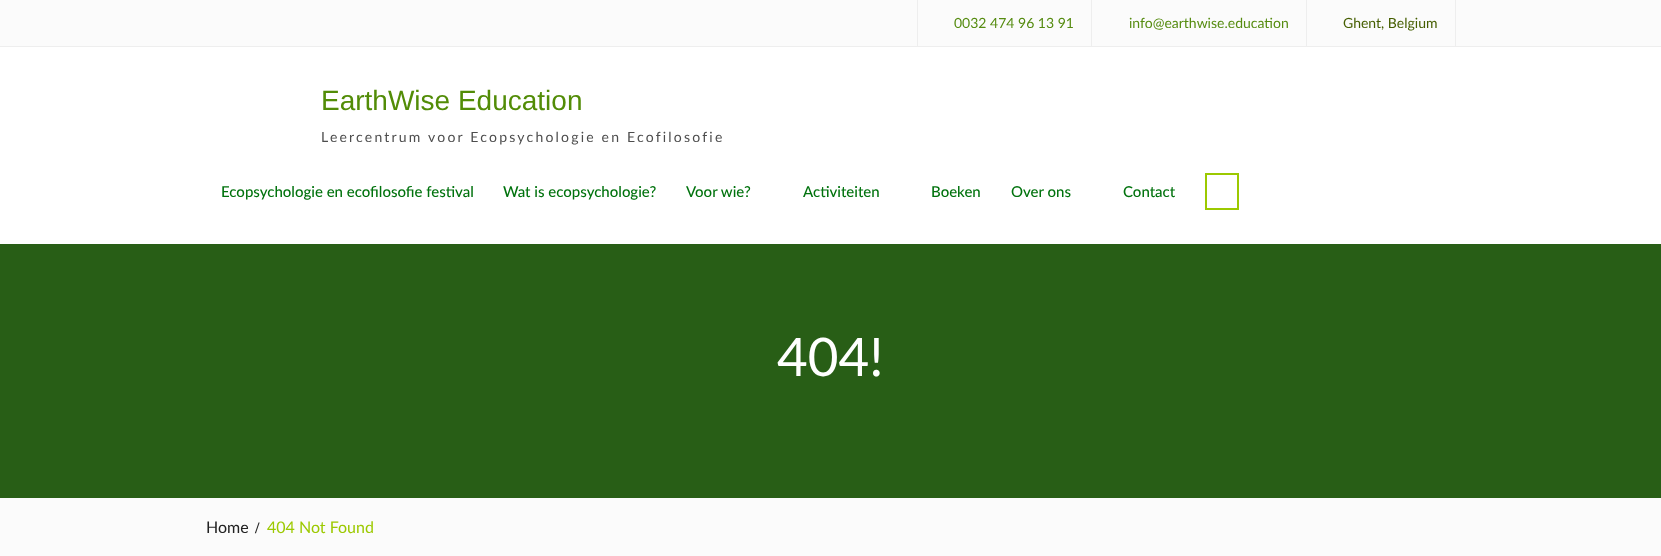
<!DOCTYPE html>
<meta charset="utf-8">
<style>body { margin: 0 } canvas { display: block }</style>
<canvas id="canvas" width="1661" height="556"></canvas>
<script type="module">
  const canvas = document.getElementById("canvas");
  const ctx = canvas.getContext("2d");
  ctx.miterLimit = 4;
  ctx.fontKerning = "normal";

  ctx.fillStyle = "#ffffff";
  ctx.fillRect(0, 0, 1661, 556);
  ctx.fillStyle = "#fbfbfb";
  ctx.fillRect(0, 0, 1661, 46);
  ctx.fillStyle = "#eeeeee";
  ctx.fillRect(0, 46, 1661, 1);
  ctx.fillRect(1091, 0, 1, 46);
  ctx.fillRect(917, 0, 1, 46);
  ctx.font = "14px Lato";
  ctx.fillStyle = "#568c11";
  ctx.fillText("0032 474 96 13 91", 954, 28);
  ctx.fillStyle = "#eeeeee";
  ctx.fillRect(1306, 0, 1, 46);
  ctx.fillStyle = "#568c11";
  ctx.fillText("info@earthwise.education", 1129, 28);
  ctx.fillStyle = "#eeeeee";
  ctx.fillRect(1455, 0, 1, 46);
  ctx.fillStyle = "#455e00";
  ctx.fillText("Ghent, Belgium", 1343, 28);
  ctx.font = "28px Liberation Sans";
  ctx.fillStyle = "#528c07";
  ctx.fillText("EarthWise Education", 321, 110);
  ctx.letterSpacing = "2.2px";
  ctx.font = "14px Lato";
  ctx.fillStyle = "#4d4d4d";
  ctx.fillText("Leercentrum voor Ecopsychologie en Ecofilosofie", 321, 142);
  ctx.letterSpacing = "0px";
  ctx.font = "500 15px Lato";
  ctx.fillStyle = "#00720d";
  ctx.fillText("Ecopsychologie en ecofilosofie festival", 221, 197);
  ctx.fillText("Wat is ecopsychologie?", 503, 197);
  ctx.fillText("Voor wie?", 686, 197);
  ctx.fillText("Activiteiten", 803, 197);
  ctx.fillText("Boeken", 931, 197);
  ctx.fillText("Over ons", 1011, 197);
  ctx.fillText("Contact", 1123, 197);
  ctx.strokeStyle = "#9cc900";
  ctx.lineWidth = 2;
  ctx.strokeRect(1206, 174, 32, 35);
  ctx.fillStyle = "#285e16";
  ctx.fillRect(0, 244, 1661, 254);
  ctx.font = "53px Lato";
  ctx.fillStyle = "#ffffff";
  ctx.fillText("404!", 777, 376);
  ctx.fillStyle = "#fbfbfb";
  ctx.fillRect(0, 498, 1661, 58);
  ctx.font = "16px Lato";
  ctx.fillStyle = "#222222";
  ctx.fillText("Home", 206, 533);
  ctx.font = "bold 16px Liberation Serif";
  ctx.fillText("/", 255, 533);
  ctx.font = "16px Lato";
  ctx.fillStyle = "#9cc900";
  ctx.fillText("404 Not Found", 267, 533);
</script>
